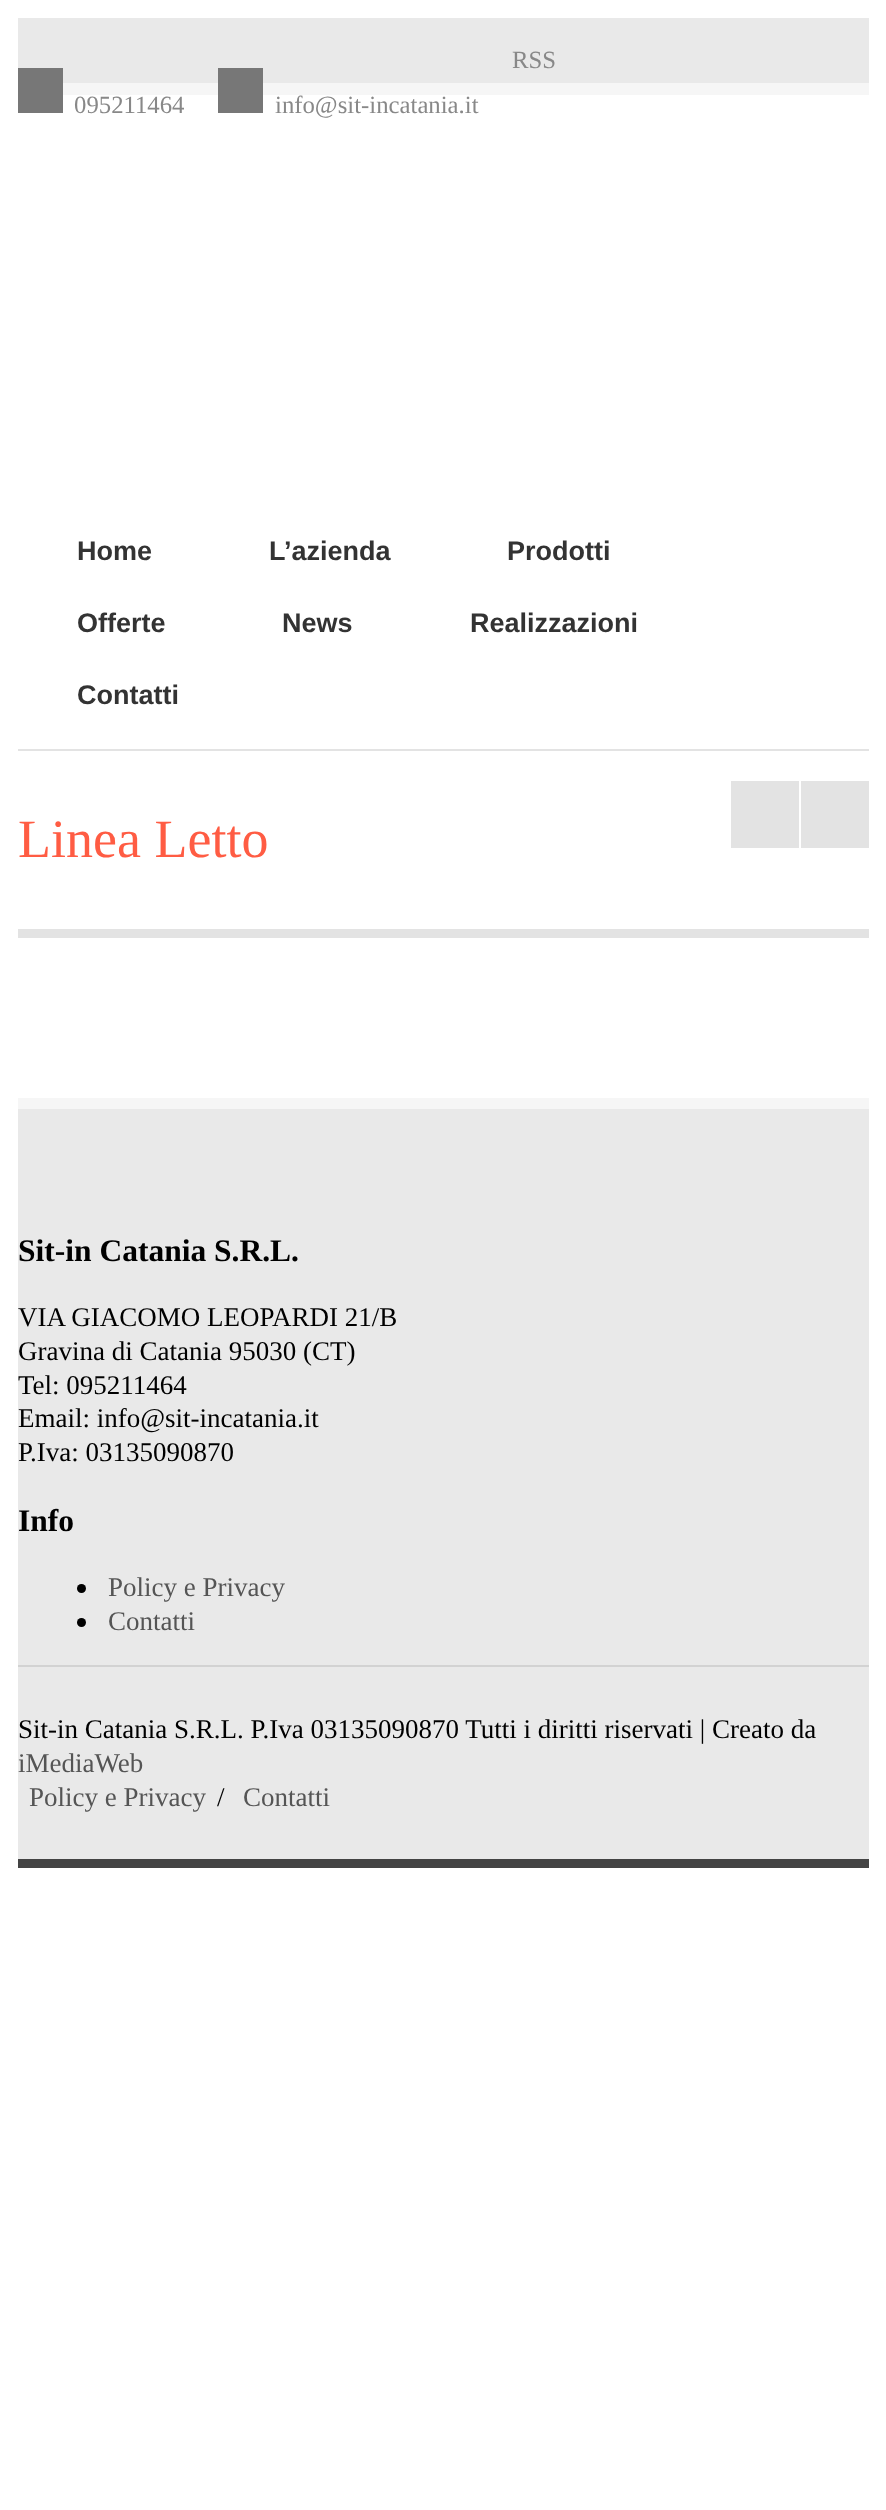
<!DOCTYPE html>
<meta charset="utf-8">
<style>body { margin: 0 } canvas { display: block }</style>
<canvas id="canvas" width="886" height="2510"></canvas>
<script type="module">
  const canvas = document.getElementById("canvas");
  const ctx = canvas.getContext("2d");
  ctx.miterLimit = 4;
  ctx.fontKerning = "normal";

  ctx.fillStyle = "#ffffff";
  ctx.fillRect(0, 0, 886, 2510);
  ctx.fillStyle = "#e9e9e9";
  ctx.fillRect(18, 18, 851, 65);
  ctx.fillStyle = "#f6f6f6";
  ctx.fillRect(63, 83, 806, 12);
  ctx.font = "24.75px Liberation Serif";
  ctx.fillStyle = "#888888";
  ctx.fillText("RSS", 512, 68);
  ctx.fillStyle = "#777777";
  ctx.fillRect(18, 68, 45, 45);
  ctx.fillStyle = "#888888";
  ctx.fillText("095211464", 74, 113);
  ctx.fillStyle = "#777777";
  ctx.fillRect(218, 68, 45, 45);
  ctx.fillStyle = "#888888";
  ctx.fillText("info@sit-incatania.it", 275, 113);
  ctx.fillStyle = "#e3e3e3";
  ctx.fillRect(18, 749, 851, 2);
  ctx.font = "bold 27px Liberation Sans";
  ctx.fillStyle = "#333333";
  ctx.fillText("Home", 77, 560);
  ctx.fillText("L’azienda", 269, 560);
  ctx.fillText("Prodotti", 507, 560);
  ctx.fillText("Offerte", 77, 632);
  ctx.fillText("News", 282, 632);
  ctx.fillText("Realizzazioni", 470, 632);
  ctx.fillText("Contatti", 77, 704);
  ctx.fillStyle = "#e3e3e3";
  ctx.fillRect(18, 929, 851, 9);
  ctx.font = "54px Liberation Serif";
  ctx.fillStyle = "#ff5c43";
  ctx.fillText("Linea Letto", 18, 857);
  ctx.fillStyle = "#e3e3e3";
  ctx.fillRect(731, 781, 68, 67);
  ctx.fillRect(801, 781, 68, 67);
  ctx.fillStyle = "#e9e9e9";
  ctx.fillRect(18, 1109, 851, 750);
  ctx.fillStyle = "#f6f6f6";
  ctx.fillRect(18, 1098, 851, 11);
  ctx.fillStyle = "#444444";
  ctx.fillRect(18, 1859, 851, 9);
  ctx.font = "bold 31.5px Liberation Serif";
  ctx.fillStyle = "#000000";
  ctx.fillText("Sit-in Catania S.R.L.", 18, 1261);
  ctx.font = "27px Liberation Serif";
  ctx.fillText("VIA GIACOMO LEOPARDI 21/B", 18, 1326);
  ctx.fillText("Gravina di Catania 95030 (CT)", 18, 1360);
  ctx.fillText("Tel: 095211464", 18, 1394);
  ctx.fillText("Email: info@sit-incatania.it", 18, 1427);
  ctx.fillText("P.Iva: 03135090870", 18, 1461);
  ctx.font = "bold 31.5px Liberation Serif";
  ctx.fillText("Info", 18, 1531);
  ctx.beginPath();
  ctx.arc(81.5, 1588.5, 4.5, 0, Math.PI * 2);
  ctx.fill();
  ctx.font = "27px Liberation Serif";
  ctx.fillStyle = "#555555";
  ctx.fillText("Policy e Privacy", 108, 1596);
  ctx.fillStyle = "#000000";
  ctx.beginPath();
  ctx.arc(81.5, 1622.5, 4.5, 0, Math.PI * 2);
  ctx.fill();
  ctx.fillStyle = "#555555";
  ctx.fillText("Contatti", 108, 1630);
  ctx.fillStyle = "#d2d2d2";
  ctx.fillRect(18, 1665, 851, 2);
  ctx.fillStyle = "#000000";
  ctx.fillText("Sit-in Catania S.R.L. P.Iva 03135090870 Tutti i diritti riservati | Creato da", 18, 1738);
  ctx.fillStyle = "#555555";
  ctx.fillText("iMediaWeb", 18, 1772);
  ctx.fillText("Policy e Privacy", 29, 1806);
  ctx.fillStyle = "#000000";
  ctx.fillText("/", 217, 1806);
  ctx.fillStyle = "#555555";
  ctx.fillText("Contatti", 243, 1806);
</script>
